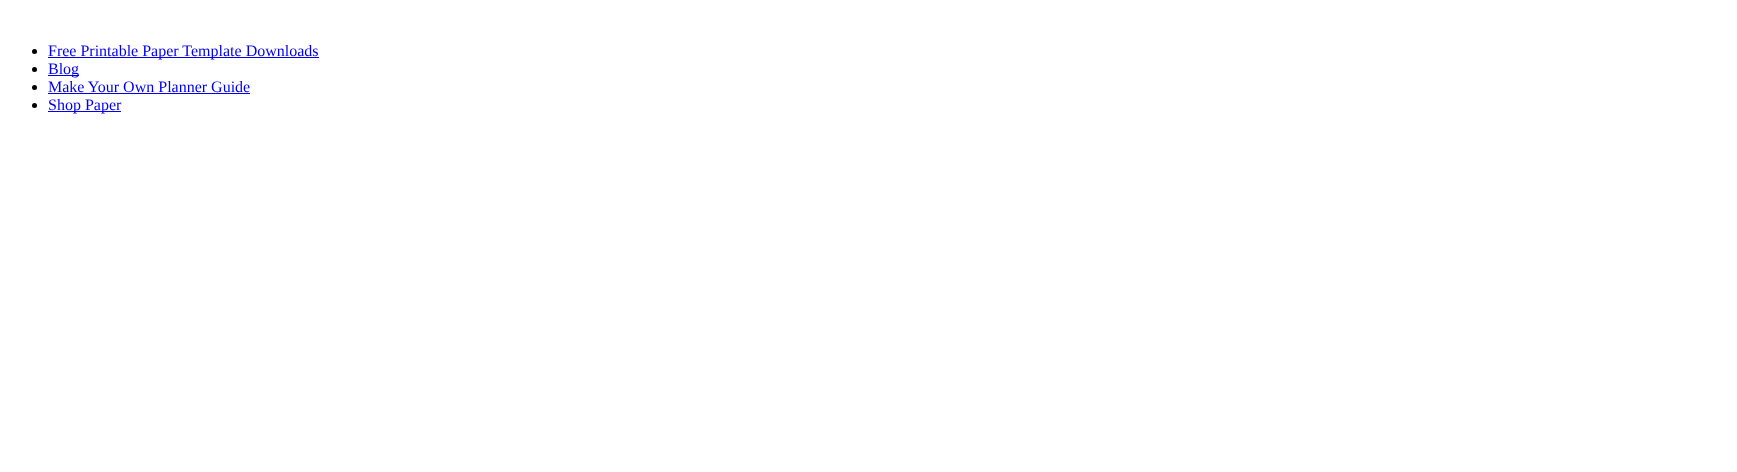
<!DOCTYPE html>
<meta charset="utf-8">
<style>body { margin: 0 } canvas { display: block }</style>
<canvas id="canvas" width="1737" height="472"></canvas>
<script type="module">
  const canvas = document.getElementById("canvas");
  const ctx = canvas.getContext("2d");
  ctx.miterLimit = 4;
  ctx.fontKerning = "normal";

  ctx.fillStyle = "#ffffff";
  ctx.fillRect(0, 0, 1737, 472);
  ctx.fillStyle = "#000000";
  ctx.beginPath();
  ctx.arc(34.5, 51.5, 2.5, 0, Math.PI * 2);
  ctx.fill();
  ctx.fillStyle = "#0000ee";
  ctx.fillRect(48, 57, 271, 1);
  ctx.font = "16px Liberation Serif";
  ctx.fillText("Free Printable Paper Template Downloads", 48, 56);
  ctx.fillStyle = "#000000";
  ctx.beginPath();
  ctx.arc(34.5, 69.5, 2.5, 0, Math.PI * 2);
  ctx.fill();
  ctx.fillStyle = "#0000ee";
  ctx.fillRect(48, 75, 31, 1);
  ctx.fillText("Blog", 48, 74);
  ctx.fillStyle = "#000000";
  ctx.beginPath();
  ctx.arc(34.5, 87.5, 2.5, 0, Math.PI * 2);
  ctx.fill();
  ctx.fillStyle = "#0000ee";
  ctx.fillText("Make Your Own Planner Guide", 48, 92);
  ctx.fillRect(48, 93, 202, 1);
  ctx.fillStyle = "#000000";
  ctx.beginPath();
  ctx.arc(34.5, 105.5, 2.5, 0, Math.PI * 2);
  ctx.fill();
  ctx.fillStyle = "#0000ee";
  ctx.fillRect(48, 111, 73, 1);
  ctx.fillText("Shop Paper", 48, 110);
</script>
